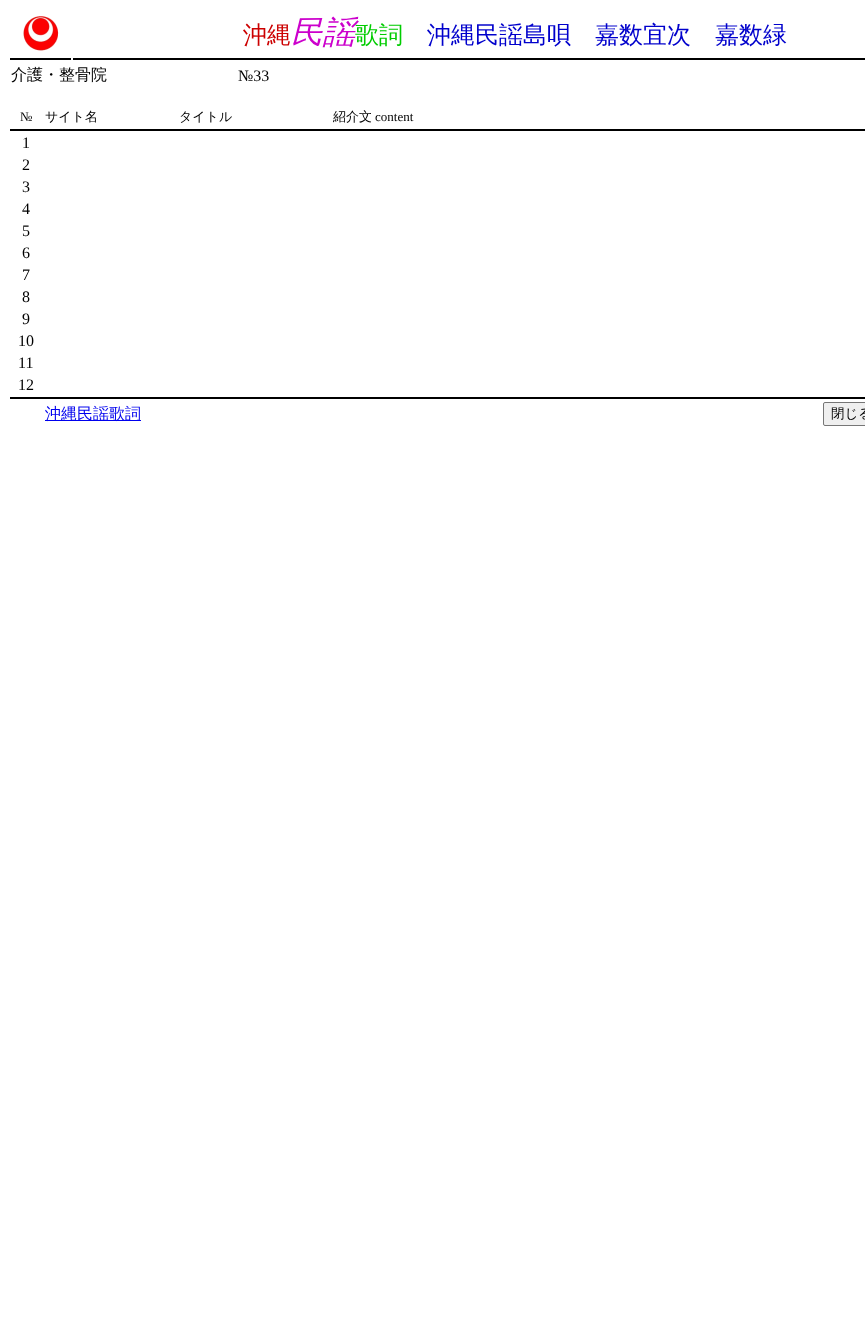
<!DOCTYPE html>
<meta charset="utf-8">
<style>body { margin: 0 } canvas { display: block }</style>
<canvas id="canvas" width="865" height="1337"></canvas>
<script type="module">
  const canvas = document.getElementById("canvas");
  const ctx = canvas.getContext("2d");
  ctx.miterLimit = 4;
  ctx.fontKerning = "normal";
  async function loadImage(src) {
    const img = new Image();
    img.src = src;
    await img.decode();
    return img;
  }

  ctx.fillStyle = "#ffffff";
  ctx.fillRect(0, 0, 865, 1337);
  ctx.drawImage(await loadImage("img1.png"), 23, 16, 36, 35);
  ctx.font = "500 24px WenQuanYi Zen Hei";
  ctx.fillStyle = "#cc0000";
  ctx.fillText("沖縄", 243, 43);
  ctx.font = "italic 500 32px WenQuanYi Zen Hei";
  ctx.fillStyle = "#cc00cc";
  ctx.fillText("民謡", 291, 43);
  ctx.font = "500 24px WenQuanYi Zen Hei";
  ctx.fillStyle = "#00cc00";
  ctx.fillText("歌詞", 355, 43);
  ctx.fillStyle = "#0000cc";
  ctx.fillText("沖縄民謡島唄　嘉数宜次　嘉数緑", 427, 43);
  ctx.fillStyle = "#000000";
  ctx.fillRect(10, 58, 61, 2);
  ctx.fillRect(73, 58, 792, 2);
  ctx.font = "500 16px WenQuanYi Zen Hei";
  ctx.fillText("介護・整骨院", 11, 80);
  ctx.font = "16px Liberation Serif";
  ctx.fillText("№33", 238, 81);
  ctx.font = "13px Liberation Serif";
  ctx.fillText("№", 20, 121);
  ctx.font = "500 13px WenQuanYi Zen Hei";
  ctx.fillText("サイト名", 45, 121);
  ctx.fillText("タイトル", 179, 121);
  ctx.fillText("紹介文", 333, 121);
  ctx.font = "13px Liberation Serif";
  ctx.fillText("content", 375, 121);
  ctx.fillRect(10, 129, 855, 2);
  ctx.font = "16px Liberation Serif";
  ctx.fillText("1", 22, 148);
  ctx.fillText("2", 22, 170);
  ctx.fillText("3", 22, 192);
  ctx.fillText("4", 22, 214);
  ctx.fillText("5", 22, 236);
  ctx.fillText("6", 22, 258);
  ctx.fillText("7", 22, 280);
  ctx.fillText("8", 22, 302);
  ctx.fillText("9", 22, 324);
  ctx.fillText("10", 18, 346);
  ctx.fillText("11", 18, 368);
  ctx.fillText("12", 18, 390);
  ctx.fillRect(10, 397, 855, 2);
  ctx.fillStyle = "#0000ee";
  ctx.fillRect(45, 420, 96, 1);
  ctx.font = "500 16px WenQuanYi Zen Hei";
  ctx.fillText("沖縄民謡歌詞", 45, 419);
  ctx.fillStyle = "#efefef";
  ctx.beginPath();
  ctx.roundRect(823.5, 402.5, 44, 23, 1.5);
  ctx.fill();
  ctx.strokeStyle = "#767676";
  ctx.stroke();
  ctx.font = "500 13.5px WenQuanYi Zen Hei";
  ctx.fillStyle = "#000000";
  ctx.fillText("閉じる", 831, 418);
</script>
